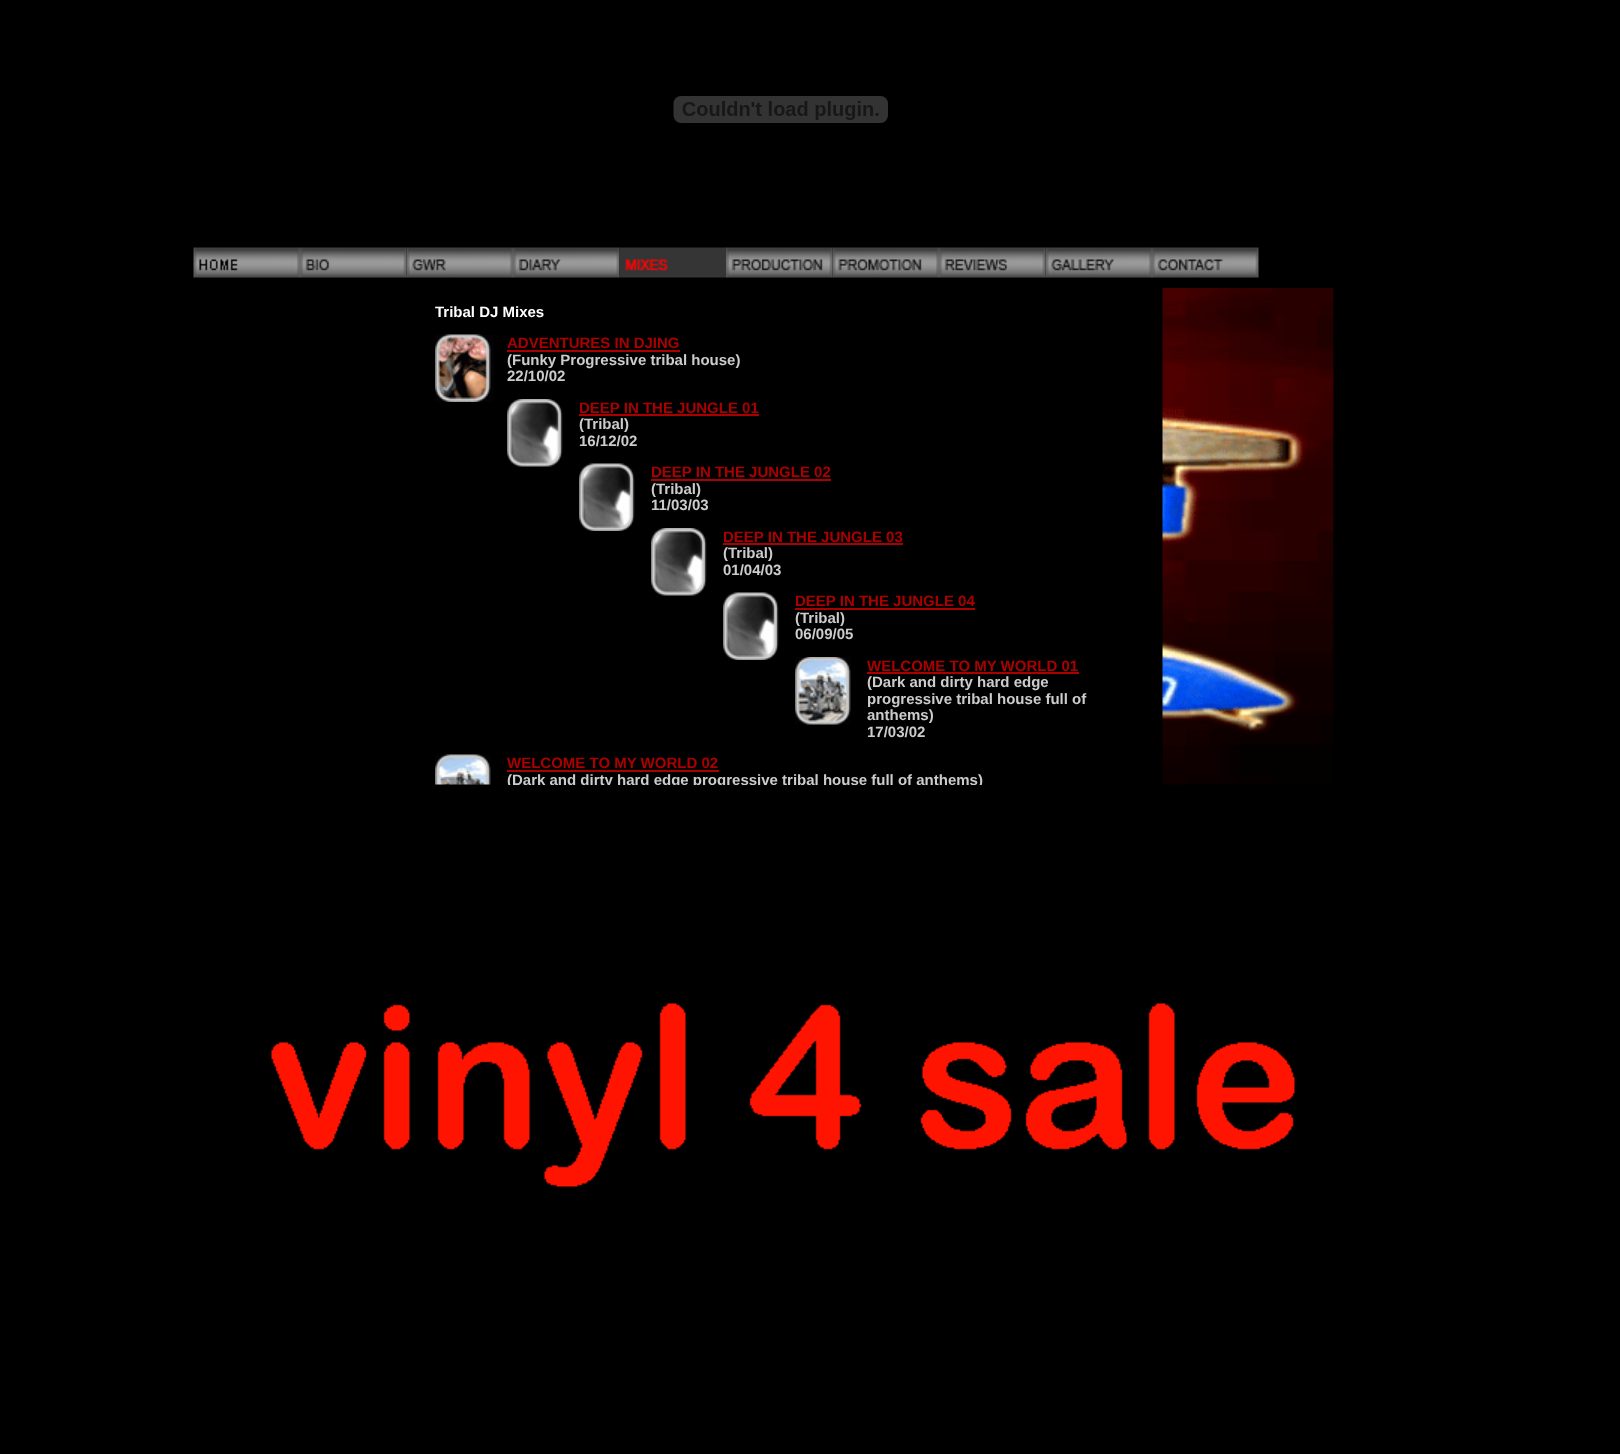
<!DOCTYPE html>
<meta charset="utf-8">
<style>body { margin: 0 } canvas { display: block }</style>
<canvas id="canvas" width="1620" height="1454"></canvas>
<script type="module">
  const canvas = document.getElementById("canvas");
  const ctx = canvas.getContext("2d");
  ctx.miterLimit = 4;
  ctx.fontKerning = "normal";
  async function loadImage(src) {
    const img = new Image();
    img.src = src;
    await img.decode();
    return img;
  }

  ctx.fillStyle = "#000000";
  ctx.fillRect(0, 0, 1620, 1454);
  ctx.drawImage(await loadImage("img1.png"), 673, 96, 215, 27);
  ctx.drawImage(await loadImage("img2.png"), 193, 247, 107, 31);
  ctx.drawImage(await loadImage("img3.png"), 300, 247, 107, 31);
  ctx.drawImage(await loadImage("img4.png"), 406, 247, 107, 31);
  ctx.drawImage(await loadImage("img5.png"), 513, 247, 107, 31);
  ctx.drawImage(await loadImage("img6.png"), 619, 247, 107, 31);
  ctx.drawImage(await loadImage("img7.png"), 726, 247, 107, 31);
  ctx.drawImage(await loadImage("img8.png"), 832, 247, 107, 31);
  ctx.drawImage(await loadImage("img9.png"), 939, 247, 107, 31);
  ctx.drawImage(await loadImage("img10.png"), 1045, 247, 107, 31);
  ctx.drawImage(await loadImage("img11.png"), 1152, 247, 107, 31);
  ctx.font = "bold 15px Liberation Sans";
  ctx.fillStyle = "#ffffff";
  ctx.fillText("Tribal DJ Mixes", 435, 317);
  ctx.drawImage(await loadImage("img12.png"), 435, 334, 59, 68);
  ctx.fillStyle = "#aa0000";
  ctx.fillText("ADVENTURES IN DJING", 507, 348);
  ctx.fillRect(507, 350, 173, 2);
  ctx.fillStyle = "#cccccc";
  ctx.fillText("(Funky Progressive tribal house)", 507, 365);
  ctx.fillText("22/10/02", 507, 381);
  ctx.drawImage(await loadImage("img13.png"), 507, 399, 56, 68);
  ctx.fillStyle = "#aa0000";
  ctx.fillText("DEEP IN THE JUNGLE 01", 579, 413);
  ctx.fillRect(579, 414, 180, 2);
  ctx.fillStyle = "#cccccc";
  ctx.fillText("(Tribal)", 579, 429);
  ctx.fillText("16/12/02", 579, 446);
  ctx.drawImage(await loadImage("img14.png"), 579, 463, 56, 68);
  ctx.fillStyle = "#aa0000";
  ctx.fillText("DEEP IN THE JUNGLE 02", 651, 477);
  ctx.fillRect(651, 479, 180, 2);
  ctx.fillStyle = "#cccccc";
  ctx.fillText("(Tribal)", 651, 494);
  ctx.fillText("11/03/03", 651, 510);
  ctx.drawImage(await loadImage("img15.png"), 651, 528, 56, 68);
  ctx.fillStyle = "#aa0000";
  ctx.fillText("DEEP IN THE JUNGLE 03", 723, 542);
  ctx.fillRect(723, 543, 180, 2);
  ctx.fillStyle = "#cccccc";
  ctx.fillText("(Tribal)", 723, 558);
  ctx.fillText("01/04/03", 723, 575);
  ctx.drawImage(await loadImage("img16.png"), 723, 592, 56, 68);
  ctx.fillStyle = "#aa0000";
  ctx.fillText("DEEP IN THE JUNGLE 04", 795, 606);
  ctx.fillRect(795, 608, 180, 2);
  ctx.fillStyle = "#cccccc";
  ctx.fillText("(Tribal)", 795, 623);
  ctx.fillText("06/09/05", 795, 639);
  ctx.drawImage(await loadImage("img17.png"), 795, 657, 56, 68);
  ctx.fillStyle = "#aa0000";
  ctx.fillText("WELCOME TO MY WORLD 01", 867, 671);
  ctx.fillRect(867, 672, 212, 2);
  ctx.fillStyle = "#cccccc";
  ctx.fillText("(Dark and dirty hard edge", 867, 687);
  ctx.fillText("progressive tribal house full of", 867, 704);
  ctx.fillText("anthems)", 867, 720);
  ctx.fillText("17/03/02", 867, 737);
  ctx.drawImage(await loadImage("img18.png"), 435, 754, 56, 31);
  ctx.fillStyle = "#aa0000";
  ctx.fillText("WELCOME TO MY WORLD 02", 507, 768);
  ctx.fillRect(507, 770, 212, 2);
  ctx.save();
  ctx.beginPath();
  ctx.rect(435, 288, 695, 497);
  ctx.clip();
  ctx.fillStyle = "#cccccc";
  ctx.fillText("(Dark and dirty hard edge progressive tribal house full of anthems)", 507, 785);
  ctx.restore();
  ctx.drawImage(await loadImage("img19.png"), 1162, 288, 172, 497);
  ctx.drawImage(await loadImage("img20.png"), 271, 1003, 1024, 184);
</script>
